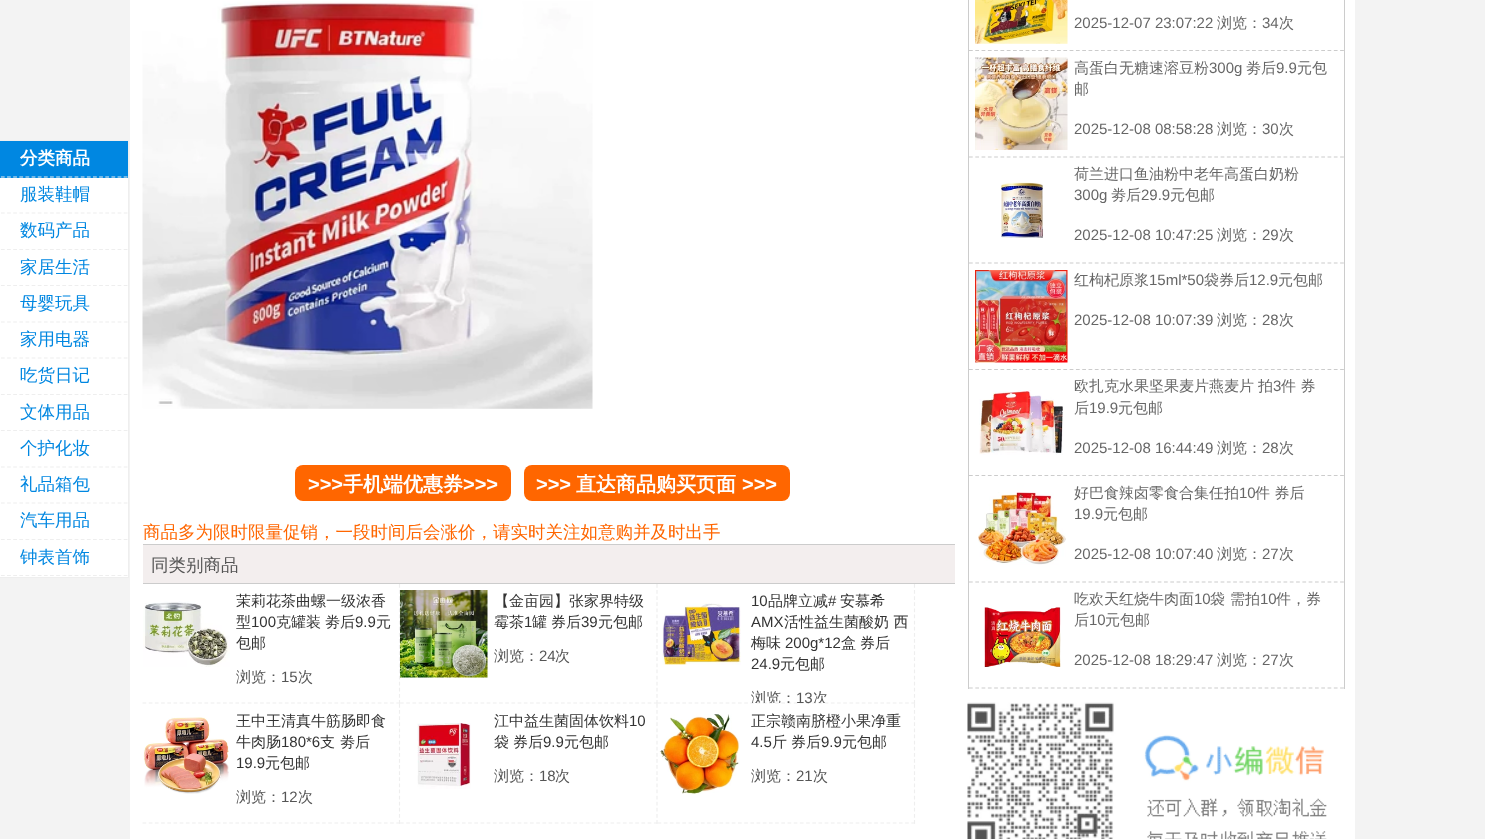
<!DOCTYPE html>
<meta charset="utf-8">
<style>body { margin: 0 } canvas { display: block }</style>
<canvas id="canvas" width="1485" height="839"></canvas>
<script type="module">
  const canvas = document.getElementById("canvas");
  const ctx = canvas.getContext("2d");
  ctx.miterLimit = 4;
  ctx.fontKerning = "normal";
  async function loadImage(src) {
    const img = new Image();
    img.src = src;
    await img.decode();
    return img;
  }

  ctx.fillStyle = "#f3f3f3";
  ctx.fillRect(0, 0, 1485, 839);
  ctx.fillStyle = "#ffffff";
  ctx.fillRect(0, 178, 128, 399);
  ctx.strokeStyle = "#eeeeee";
  ctx.strokeRect(-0.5, 140.5, 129, 437);
  ctx.fillStyle = "#0087e1";
  ctx.fillRect(0, 141, 128, 37);
  ctx.beginPath();
  ctx.moveTo(-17.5, 177);
  ctx.lineTo(127.5, 177);
  ctx.lineWidth = 1.2;
  ctx.setLineDash([3.75, 2.39]);
  ctx.stroke();
  ctx.font = "bold 17.5px WenQuanYi Zen Hei";
  ctx.fillStyle = "#ffffff";
  ctx.fillText("分类商品", 20, 164);
  ctx.beginPath();
  ctx.moveTo(-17.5, 213);
  ctx.lineTo(127.5, 213);
  ctx.stroke();
  ctx.font = "500 17.5px WenQuanYi Zen Hei";
  ctx.fillStyle = "#0087e1";
  ctx.fillText("服装鞋帽", 20, 200);
  ctx.beginPath();
  ctx.moveTo(-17.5, 249.5);
  ctx.lineTo(127.5, 249.5);
  ctx.stroke();
  ctx.fillText("数码产品", 20, 236);
  ctx.beginPath();
  ctx.moveTo(-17.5, 285.5);
  ctx.lineTo(127.5, 285.5);
  ctx.stroke();
  ctx.fillText("家居生活", 20, 273);
  ctx.beginPath();
  ctx.moveTo(-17.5, 322);
  ctx.lineTo(127.5, 322);
  ctx.stroke();
  ctx.fillText("母婴玩具", 20, 309);
  ctx.beginPath();
  ctx.moveTo(-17.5, 358);
  ctx.lineTo(127.5, 358);
  ctx.stroke();
  ctx.fillText("家用电器", 20, 345);
  ctx.beginPath();
  ctx.moveTo(-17.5, 394.5);
  ctx.lineTo(127.5, 394.5);
  ctx.stroke();
  ctx.fillText("吃货日记", 20, 381);
  ctx.beginPath();
  ctx.moveTo(-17.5, 430.5);
  ctx.lineTo(127.5, 430.5);
  ctx.stroke();
  ctx.fillText("文体用品", 20, 418);
  ctx.beginPath();
  ctx.moveTo(-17.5, 467);
  ctx.lineTo(127.5, 467);
  ctx.stroke();
  ctx.fillText("个护化妆", 20, 454);
  ctx.beginPath();
  ctx.moveTo(-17.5, 503);
  ctx.lineTo(127.5, 503);
  ctx.stroke();
  ctx.fillText("礼品箱包", 20, 490);
  ctx.beginPath();
  ctx.moveTo(-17.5, 539.5);
  ctx.lineTo(127.5, 539.5);
  ctx.stroke();
  ctx.fillText("汽车用品", 20, 526);
  ctx.beginPath();
  ctx.moveTo(-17.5, 575.5);
  ctx.lineTo(127.5, 575.5);
  ctx.stroke();
  ctx.fillText("钟表首饰", 20, 563);
  ctx.fillStyle = "#ffffff";
  ctx.fillRect(130, 0, 1225, 839);
  ctx.drawImage(await loadImage("img1.png"), 142, 1, 451, 408);
  ctx.fillStyle = "#ff6600";
  ctx.beginPath();
  ctx.roundRect(295, 465, 216, 36, 8);
  ctx.fill();
  ctx.font = "bold 20px Liberation Sans";
  ctx.fillStyle = "#ffffff";
  ctx.fillText(">>>", 308, 491);
  ctx.font = "bold 20px WenQuanYi Zen Hei";
  ctx.fillText("手机端优惠券", 343, 491);
  ctx.font = "bold 20px Liberation Sans";
  ctx.fillText(">>>", 463, 491);
  ctx.fillStyle = "#ff6600";
  ctx.beginPath();
  ctx.roundRect(524, 465, 266, 36, 8);
  ctx.fill();
  ctx.fillStyle = "#ffffff";
  ctx.fillText(">>>", 536, 491);
  ctx.font = "bold 20px WenQuanYi Zen Hei";
  ctx.fillText("直达商品购买页面", 576, 491);
  ctx.font = "bold 20px Liberation Sans";
  ctx.fillText(">>>", 742, 491);
  ctx.font = "500 17.5px WenQuanYi Zen Hei";
  ctx.fillStyle = "#ff6600";
  ctx.fillText("商品多为限时限量促销，一段时间后会涨价，请实时关注如意购并及时出手", 143, 538);
  ctx.fillStyle = "#f3eeee";
  ctx.fillRect(143, 545, 812, 38);
  ctx.fillStyle = "#cccccc";
  ctx.fillRect(143, 544, 812, 1);
  ctx.fillRect(143, 583, 812, 1);
  ctx.fillStyle = "#555555";
  ctx.fillText("同类别商品", 151, 571);
  ctx.beginPath();
  ctx.moveTo(399.5, 584);
  ctx.lineTo(399.5, 704);
  ctx.setLineDash([3.75, 2.36]);
  ctx.stroke();
  ctx.beginPath();
  ctx.moveTo(142.5, 703);
  ctx.lineTo(400, 703);
  ctx.setLineDash([3.75, 2.44]);
  ctx.stroke();
  ctx.drawImage(await loadImage("img2.png"), 143, 601, 87, 66);
  ctx.font = "500 15px WenQuanYi Zen Hei";
  ctx.fillStyle = "#333333";
  ctx.fillText("茉莉花茶曲螺一级浓香", 236, 606);
  ctx.fillText("型", 236, 627);
  ctx.font = "15px Liberation Sans";
  ctx.fillText("100", 251, 627);
  ctx.font = "500 15px WenQuanYi Zen Hei";
  ctx.fillText("克罐装", 276, 627);
  ctx.fillText("劵后", 325, 627);
  ctx.font = "15px Liberation Sans";
  ctx.fillText("9.9", 355, 627);
  ctx.font = "500 15px WenQuanYi Zen Hei";
  ctx.fillText("元", 376, 627);
  ctx.fillText("包邮", 236, 648);
  ctx.fillStyle = "#555555";
  ctx.fillText("浏览：", 236, 682);
  ctx.font = "15px Liberation Sans";
  ctx.fillText("15", 281, 682);
  ctx.font = "500 15px WenQuanYi Zen Hei";
  ctx.fillText("次", 298, 682);
  ctx.beginPath();
  ctx.moveTo(657, 584);
  ctx.lineTo(657, 704);
  ctx.setLineDash([3.75, 2.36]);
  ctx.stroke();
  ctx.beginPath();
  ctx.moveTo(400, 703);
  ctx.lineTo(657.5, 703);
  ctx.setLineDash([3.75, 2.44]);
  ctx.stroke();
  ctx.drawImage(await loadImage("img3.png"), 400, 590, 88, 88);
  ctx.fillStyle = "#333333";
  ctx.fillText("【金亩园】张家界特级", 494, 606);
  ctx.fillText("霉茶", 494, 627);
  ctx.font = "15px Liberation Sans";
  ctx.fillText("1", 524, 627);
  ctx.font = "500 15px WenQuanYi Zen Hei";
  ctx.fillText("罐", 532, 627);
  ctx.fillText("券后", 551, 627);
  ctx.font = "15px Liberation Sans";
  ctx.fillText("39", 581, 627);
  ctx.font = "500 15px WenQuanYi Zen Hei";
  ctx.fillText("元包邮", 598, 627);
  ctx.fillStyle = "#555555";
  ctx.fillText("浏览：", 494, 661);
  ctx.font = "15px Liberation Sans";
  ctx.fillText("24", 539, 661);
  ctx.font = "500 15px WenQuanYi Zen Hei";
  ctx.fillText("次", 555, 661);
  ctx.beginPath();
  ctx.moveTo(914.5, 584);
  ctx.lineTo(914.5, 704);
  ctx.setLineDash([3.75, 2.36]);
  ctx.stroke();
  ctx.beginPath();
  ctx.moveTo(657.5, 703);
  ctx.lineTo(915, 703);
  ctx.setLineDash([3.75, 2.44]);
  ctx.stroke();
  ctx.drawImage(await loadImage("img4.png"), 662, 603, 79, 62);
  ctx.font = "15px Liberation Sans";
  ctx.fillStyle = "#333333";
  ctx.fillText("10", 751, 606);
  ctx.font = "500 15px WenQuanYi Zen Hei";
  ctx.fillText("品牌立减", 768, 606);
  ctx.font = "15px Liberation Sans";
  ctx.fillText("#", 828, 606);
  ctx.font = "500 15px WenQuanYi Zen Hei";
  ctx.fillText("安慕希", 840, 606);
  ctx.font = "15px Liberation Sans";
  ctx.fillText("AMX", 751, 627);
  ctx.font = "500 15px WenQuanYi Zen Hei";
  ctx.fillText("活性益生菌酸奶 西", 784, 627);
  ctx.fillText("梅味", 751, 648);
  ctx.font = "15px Liberation Sans";
  ctx.fillText("200g*12", 785, 648);
  ctx.font = "500 15px WenQuanYi Zen Hei";
  ctx.fillText("盒", 841, 648);
  ctx.fillText("券后", 860, 648);
  ctx.font = "15px Liberation Sans";
  ctx.fillText("24.9", 751, 669);
  ctx.font = "500 15px WenQuanYi Zen Hei";
  ctx.fillText("元包邮", 780, 669);
  ctx.save();
  ctx.beginPath();
  ctx.rect(658, 584, 256, 119);
  ctx.clip();
  ctx.fillStyle = "#555555";
  ctx.fillText("浏览：", 751, 703);
  ctx.restore();
  ctx.font = "15px Liberation Sans";
  ctx.fillStyle = "#555555";
  ctx.fillText("13", 796, 703);
  ctx.save();
  ctx.beginPath();
  ctx.rect(658, 584, 256, 119);
  ctx.clip();
  ctx.font = "500 15px WenQuanYi Zen Hei";
  ctx.fillText("次", 813, 703);
  ctx.restore();
  ctx.beginPath();
  ctx.moveTo(399.5, 704);
  ctx.lineTo(399.5, 824);
  ctx.setLineDash([3.75, 2.36]);
  ctx.stroke();
  ctx.beginPath();
  ctx.moveTo(142.5, 823);
  ctx.lineTo(400, 823);
  ctx.setLineDash([3.75, 2.44]);
  ctx.stroke();
  ctx.drawImage(await loadImage("img5.png"), 143, 717, 86, 77);
  ctx.font = "500 15px WenQuanYi Zen Hei";
  ctx.fillStyle = "#333333";
  ctx.fillText("王中王清真牛筋肠即食", 236, 726);
  ctx.fillText("牛肉肠", 236, 747);
  ctx.font = "15px Liberation Sans";
  ctx.fillText("180*6", 281, 747);
  ctx.font = "500 15px WenQuanYi Zen Hei";
  ctx.fillText("支", 320, 747);
  ctx.fillText("劵后", 340, 747);
  ctx.font = "15px Liberation Sans";
  ctx.fillText("19.9", 236, 768);
  ctx.font = "500 15px WenQuanYi Zen Hei";
  ctx.fillText("元包邮", 265, 768);
  ctx.fillStyle = "#555555";
  ctx.fillText("浏览：", 236, 802);
  ctx.font = "15px Liberation Sans";
  ctx.fillText("12", 281, 802);
  ctx.font = "500 15px WenQuanYi Zen Hei";
  ctx.fillText("次", 298, 802);
  ctx.beginPath();
  ctx.moveTo(657, 704);
  ctx.lineTo(657, 824);
  ctx.setLineDash([3.75, 2.36]);
  ctx.stroke();
  ctx.beginPath();
  ctx.moveTo(400, 823);
  ctx.lineTo(657.5, 823);
  ctx.setLineDash([3.75, 2.44]);
  ctx.stroke();
  ctx.drawImage(await loadImage("img6.png"), 417, 723, 54, 66);
  ctx.fillStyle = "#333333";
  ctx.fillText("江中益生菌固体饮料", 494, 726);
  ctx.font = "15px Liberation Sans";
  ctx.fillText("10", 629, 726);
  ctx.font = "500 15px WenQuanYi Zen Hei";
  ctx.fillText("袋", 494, 747);
  ctx.fillText("券后", 513, 747);
  ctx.font = "15px Liberation Sans";
  ctx.fillText("9.9", 543, 747);
  ctx.font = "500 15px WenQuanYi Zen Hei";
  ctx.fillText("元包邮", 564, 747);
  ctx.fillStyle = "#555555";
  ctx.fillText("浏览：", 494, 781);
  ctx.font = "15px Liberation Sans";
  ctx.fillText("18", 539, 781);
  ctx.font = "500 15px WenQuanYi Zen Hei";
  ctx.fillText("次", 555, 781);
  ctx.beginPath();
  ctx.moveTo(914.5, 704);
  ctx.lineTo(914.5, 824);
  ctx.setLineDash([3.75, 2.36]);
  ctx.stroke();
  ctx.beginPath();
  ctx.moveTo(657.5, 823);
  ctx.lineTo(915, 823);
  ctx.setLineDash([3.75, 2.44]);
  ctx.stroke();
  ctx.drawImage(await loadImage("img7.png"), 659, 714, 81, 81);
  ctx.fillStyle = "#333333";
  ctx.fillText("正宗赣南脐橙小果净重", 751, 726);
  ctx.font = "15px Liberation Sans";
  ctx.fillText("4.5", 751, 747);
  ctx.font = "500 15px WenQuanYi Zen Hei";
  ctx.fillText("斤", 772, 747);
  ctx.fillText("券后", 791, 747);
  ctx.font = "15px Liberation Sans";
  ctx.fillText("9.9", 821, 747);
  ctx.font = "500 15px WenQuanYi Zen Hei";
  ctx.fillText("元包邮", 842, 747);
  ctx.fillStyle = "#555555";
  ctx.fillText("浏览：", 751, 781);
  ctx.font = "15px Liberation Sans";
  ctx.fillText("21", 796, 781);
  ctx.font = "500 15px WenQuanYi Zen Hei";
  ctx.fillText("次", 813, 781);
  ctx.fillStyle = "#cccccc";
  ctx.fillRect(1344, 0, 1, 689);
  ctx.fillRect(968, 0, 1, 689);
  ctx.beginPath();
  ctx.moveTo(969, 50.5);
  ctx.lineTo(1344, 50.5);
  ctx.strokeStyle = "#cccccc";
  ctx.setLineDash([3.75, 2.54]);
  ctx.stroke();
  ctx.drawImage(await loadImage("img8.png"), 975, 0, 93, 44);
  ctx.font = "15px Liberation Sans";
  ctx.fillStyle = "#666666";
  ctx.fillText("2025-12-07 23:07:22", 1074, 28);
  ctx.font = "500 15px WenQuanYi Zen Hei";
  ctx.fillText("浏览：", 1217, 28);
  ctx.font = "15px Liberation Sans";
  ctx.fillText("34", 1262, 28);
  ctx.font = "500 15px WenQuanYi Zen Hei";
  ctx.fillText("次", 1279, 28);
  ctx.beginPath();
  ctx.moveTo(969, 157);
  ctx.lineTo(1344, 157);
  ctx.stroke();
  ctx.drawImage(await loadImage("img9.png"), 975, 57, 93, 93);
  ctx.fillText("高蛋白无糖速溶豆粉", 1074, 73);
  ctx.font = "15px Liberation Sans";
  ctx.fillText("300g", 1209, 73);
  ctx.font = "500 15px WenQuanYi Zen Hei";
  ctx.fillText("劵后", 1246, 73);
  ctx.font = "15px Liberation Sans";
  ctx.fillText("9.9", 1276, 73);
  ctx.font = "500 15px WenQuanYi Zen Hei";
  ctx.fillText("元包", 1297, 73);
  ctx.fillText("邮", 1074, 94);
  ctx.font = "15px Liberation Sans";
  ctx.fillText("2025-12-08 08:58:28", 1074, 134);
  ctx.font = "500 15px WenQuanYi Zen Hei";
  ctx.fillText("浏览：", 1217, 134);
  ctx.font = "15px Liberation Sans";
  ctx.fillText("30", 1262, 134);
  ctx.font = "500 15px WenQuanYi Zen Hei";
  ctx.fillText("次", 1279, 134);
  ctx.beginPath();
  ctx.moveTo(969, 263);
  ctx.lineTo(1344, 263);
  ctx.stroke();
  ctx.drawImage(await loadImage("img10.png"), 1000, 182, 43, 56);
  ctx.fillText("荷兰进口鱼油粉中老年高蛋白奶粉", 1074, 179);
  ctx.font = "15px Liberation Sans";
  ctx.fillText("300g", 1074, 200);
  ctx.font = "500 15px WenQuanYi Zen Hei";
  ctx.fillText("劵后", 1111, 200);
  ctx.font = "15px Liberation Sans";
  ctx.fillText("29.9", 1141, 200);
  ctx.font = "500 15px WenQuanYi Zen Hei";
  ctx.fillText("元包邮", 1170, 200);
  ctx.font = "15px Liberation Sans";
  ctx.fillText("2025-12-08 10:47:25", 1074, 240);
  ctx.font = "500 15px WenQuanYi Zen Hei";
  ctx.fillText("浏览：", 1217, 240);
  ctx.font = "15px Liberation Sans";
  ctx.fillText("29", 1262, 240);
  ctx.font = "500 15px WenQuanYi Zen Hei";
  ctx.fillText("次", 1279, 240);
  ctx.beginPath();
  ctx.moveTo(969, 369.5);
  ctx.lineTo(1344, 369.5);
  ctx.stroke();
  ctx.drawImage(await loadImage("img11.png"), 975, 270, 93, 93);
  ctx.fillText("红枸杞原浆", 1074, 285);
  ctx.font = "15px Liberation Sans";
  ctx.fillText("15ml*50", 1149, 285);
  ctx.font = "500 15px WenQuanYi Zen Hei";
  ctx.fillText("袋券后", 1204, 285);
  ctx.font = "15px Liberation Sans";
  ctx.fillText("12.9", 1249, 285);
  ctx.font = "500 15px WenQuanYi Zen Hei";
  ctx.fillText("元包邮", 1278, 285);
  ctx.font = "15px Liberation Sans";
  ctx.fillText("2025-12-08 10:07:39", 1074, 325);
  ctx.font = "500 15px WenQuanYi Zen Hei";
  ctx.fillText("浏览：", 1217, 325);
  ctx.font = "15px Liberation Sans";
  ctx.fillText("28", 1262, 325);
  ctx.font = "500 15px WenQuanYi Zen Hei";
  ctx.fillText("次", 1279, 325);
  ctx.beginPath();
  ctx.moveTo(969, 475.5);
  ctx.lineTo(1344, 475.5);
  ctx.stroke();
  ctx.drawImage(await loadImage("img12.png"), 979, 390, 84, 65);
  ctx.fillText("欧扎克水果坚果麦片燕麦片", 1074, 391);
  ctx.fillText("拍", 1258, 391);
  ctx.font = "15px Liberation Sans";
  ctx.fillText("3", 1273, 391);
  ctx.font = "500 15px WenQuanYi Zen Hei";
  ctx.fillText("件 券", 1281, 391);
  ctx.fillText("后", 1074, 413);
  ctx.font = "15px Liberation Sans";
  ctx.fillText("19.9", 1089, 413);
  ctx.font = "500 15px WenQuanYi Zen Hei";
  ctx.fillText("元包邮", 1118, 413);
  ctx.font = "15px Liberation Sans";
  ctx.fillText("2025-12-08 16:44:49", 1074, 453);
  ctx.font = "500 15px WenQuanYi Zen Hei";
  ctx.fillText("浏览：", 1217, 453);
  ctx.font = "15px Liberation Sans";
  ctx.fillText("28", 1262, 453);
  ctx.font = "500 15px WenQuanYi Zen Hei";
  ctx.fillText("次", 1279, 453);
  ctx.beginPath();
  ctx.moveTo(969, 582);
  ctx.lineTo(1344, 582);
  ctx.stroke();
  ctx.drawImage(await loadImage("img13.png"), 978, 492, 88, 73);
  ctx.fillText("好巴食辣卤零食合集任拍", 1074, 498);
  ctx.font = "15px Liberation Sans";
  ctx.fillText("10", 1239, 498);
  ctx.font = "500 15px WenQuanYi Zen Hei";
  ctx.fillText("件 券后", 1255, 498);
  ctx.font = "15px Liberation Sans";
  ctx.fillText("19.9", 1074, 519);
  ctx.font = "500 15px WenQuanYi Zen Hei";
  ctx.fillText("元包邮", 1103, 519);
  ctx.font = "15px Liberation Sans";
  ctx.fillText("2025-12-08 10:07:40", 1074, 559);
  ctx.font = "500 15px WenQuanYi Zen Hei";
  ctx.fillText("浏览：", 1217, 559);
  ctx.font = "15px Liberation Sans";
  ctx.fillText("27", 1262, 559);
  ctx.font = "500 15px WenQuanYi Zen Hei";
  ctx.fillText("次", 1279, 559);
  ctx.beginPath();
  ctx.moveTo(969, 688);
  ctx.lineTo(1344, 688);
  ctx.stroke();
  ctx.drawImage(await loadImage("img14.png"), 984, 607, 77, 60);
  ctx.fillText("吃欢天红烧牛肉面", 1074, 604);
  ctx.font = "15px Liberation Sans";
  ctx.fillText("10", 1194, 604);
  ctx.font = "500 15px WenQuanYi Zen Hei";
  ctx.fillText("袋", 1210, 604);
  ctx.fillText("需拍", 1230, 604);
  ctx.font = "15px Liberation Sans";
  ctx.fillText("10", 1260, 604);
  ctx.font = "500 15px WenQuanYi Zen Hei";
  ctx.fillText("件，券", 1276, 604);
  ctx.fillText("后", 1074, 625);
  ctx.font = "15px Liberation Sans";
  ctx.fillText("10", 1089, 625);
  ctx.font = "500 15px WenQuanYi Zen Hei";
  ctx.fillText("元包邮", 1105, 625);
  ctx.font = "15px Liberation Sans";
  ctx.fillText("2025-12-08 18:29:47", 1074, 665);
  ctx.font = "500 15px WenQuanYi Zen Hei";
  ctx.fillText("浏览：", 1217, 665);
  ctx.font = "15px Liberation Sans";
  ctx.fillText("27", 1262, 665);
  ctx.font = "500 15px WenQuanYi Zen Hei";
  ctx.fillText("次", 1279, 665);
  ctx.drawImage(await loadImage("img15.png"), 967, 702, 360, 137);
</script>
